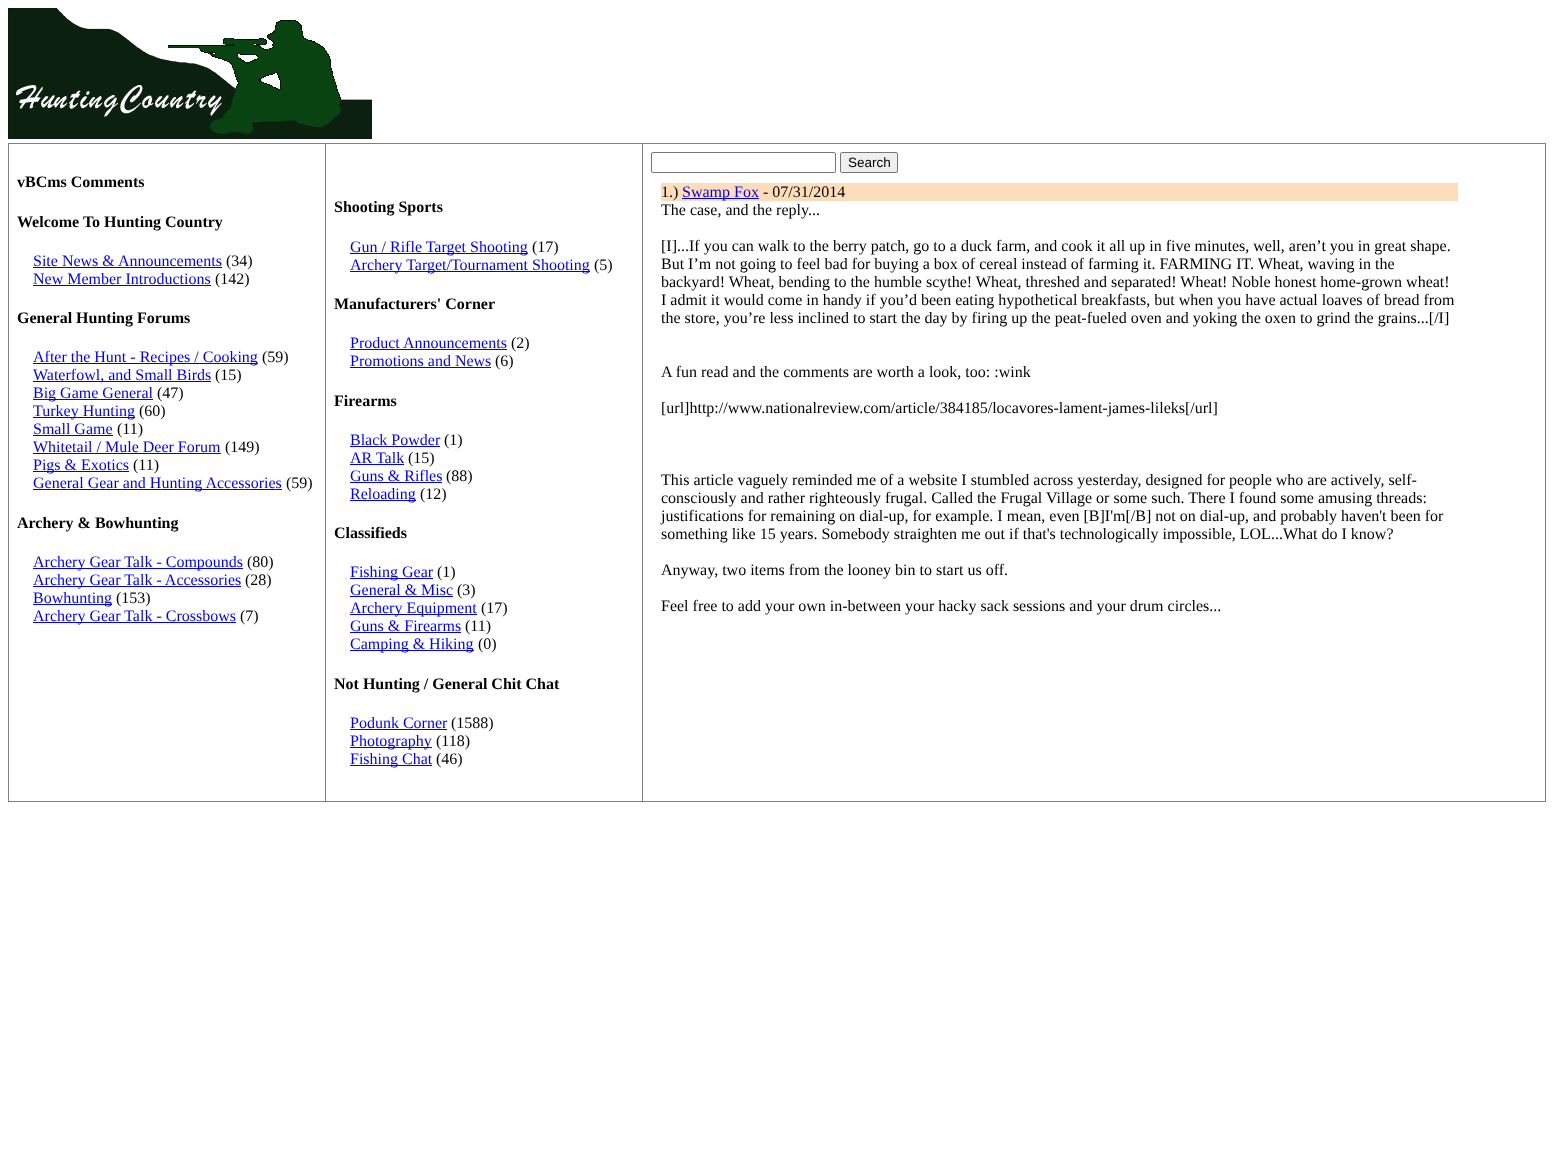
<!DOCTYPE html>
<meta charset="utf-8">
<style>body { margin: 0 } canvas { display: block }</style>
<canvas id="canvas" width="1554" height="1173"></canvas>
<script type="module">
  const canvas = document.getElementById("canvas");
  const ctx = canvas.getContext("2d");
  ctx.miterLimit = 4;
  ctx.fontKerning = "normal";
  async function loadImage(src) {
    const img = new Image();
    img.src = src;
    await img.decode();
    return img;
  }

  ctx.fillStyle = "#ffffff";
  ctx.fillRect(0, 0, 1554, 1173);
  ctx.drawImage(await loadImage("img1.png"), 8, 8, 364, 131);
  ctx.fillStyle = "#808080";
  ctx.fillRect(8, 143, 1538, 1);
  ctx.fillRect(1545, 143, 1, 659);
  ctx.fillRect(8, 801, 1538, 1);
  ctx.fillRect(8, 143, 1, 659);
  ctx.font = "bold 16px Liberation Serif";
  ctx.fillStyle = "#000000";
  ctx.fillText("vBCms Comments", 17, 187);
  ctx.fillText("Welcome To Hunting Country", 17, 227);
  ctx.font = "16px Liberation Serif";
  ctx.fillStyle = "#0000ee";
  ctx.fillText("Site News & Announcements", 33, 266);
  ctx.fillRect(33, 267, 189, 1);
  ctx.fillStyle = "#000000";
  ctx.fillText("(34)", 226, 266);
  ctx.fillStyle = "#0000ee";
  ctx.fillText("New Member Introductions", 33, 284);
  ctx.fillRect(33, 285, 178, 1);
  ctx.fillStyle = "#000000";
  ctx.fillText("(142)", 215, 284);
  ctx.font = "bold 16px Liberation Serif";
  ctx.fillText("General Hunting Forums", 17, 323);
  ctx.fillStyle = "#0000ee";
  ctx.fillRect(33, 363, 225, 1);
  ctx.font = "16px Liberation Serif";
  ctx.fillText("After the Hunt - Recipes / Cooking", 33, 362);
  ctx.fillStyle = "#000000";
  ctx.fillText("(59)", 262, 362);
  ctx.fillStyle = "#0000ee";
  ctx.fillRect(33, 381, 178, 1);
  ctx.fillText("Waterfowl, and Small Birds", 33, 380);
  ctx.fillStyle = "#000000";
  ctx.fillText("(15)", 215, 380);
  ctx.fillStyle = "#0000ee";
  ctx.fillRect(33, 399, 120, 1);
  ctx.fillText("Big Game General", 33, 398);
  ctx.fillStyle = "#000000";
  ctx.fillText("(47)", 157, 398);
  ctx.fillStyle = "#0000ee";
  ctx.fillRect(33, 417, 102, 1);
  ctx.fillText("Turkey Hunting", 33, 416);
  ctx.fillStyle = "#000000";
  ctx.fillText("(60)", 139, 416);
  ctx.fillStyle = "#0000ee";
  ctx.fillText("Small Game", 33, 434);
  ctx.fillRect(33, 435, 80, 1);
  ctx.fillStyle = "#000000";
  ctx.fillText("(11)", 117, 434);
  ctx.fillStyle = "#0000ee";
  ctx.fillText("Whitetail / Mule Deer Forum", 33, 452);
  ctx.fillRect(33, 453, 188, 1);
  ctx.fillStyle = "#000000";
  ctx.fillText("(149)", 225, 452);
  ctx.fillStyle = "#0000ee";
  ctx.fillRect(33, 471, 96, 1);
  ctx.fillText("Pigs & Exotics", 33, 470);
  ctx.fillStyle = "#000000";
  ctx.fillText("(11)", 133, 470);
  ctx.fillStyle = "#0000ee";
  ctx.fillRect(33, 489, 249, 1);
  ctx.fillText("General Gear and Hunting Accessories", 33, 488);
  ctx.fillStyle = "#000000";
  ctx.fillText("(59)", 286, 488);
  ctx.font = "bold 16px Liberation Serif";
  ctx.fillText("Archery & Bowhunting", 17, 528);
  ctx.fillStyle = "#0000ee";
  ctx.fillRect(33, 568, 210, 1);
  ctx.font = "16px Liberation Serif";
  ctx.fillText("Archery Gear Talk - Compounds", 33, 567);
  ctx.fillStyle = "#000000";
  ctx.fillText("(80)", 247, 567);
  ctx.fillStyle = "#0000ee";
  ctx.fillRect(33, 586, 208, 1);
  ctx.fillText("Archery Gear Talk - Accessories", 33, 585);
  ctx.fillStyle = "#000000";
  ctx.fillText("(28)", 245, 585);
  ctx.fillStyle = "#0000ee";
  ctx.fillRect(33, 604, 79, 1);
  ctx.fillText("Bowhunting", 33, 603);
  ctx.fillStyle = "#000000";
  ctx.fillText("(153)", 116, 603);
  ctx.fillStyle = "#0000ee";
  ctx.fillRect(33, 622, 203, 1);
  ctx.fillText("Archery Gear Talk - Crossbows", 33, 621);
  ctx.fillStyle = "#000000";
  ctx.fillText("(7)", 240, 621);
  ctx.fillStyle = "#808080";
  ctx.fillRect(325, 143, 1, 659);
  ctx.font = "bold 16px Liberation Serif";
  ctx.fillStyle = "#000000";
  ctx.fillText("Shooting Sports", 334, 212);
  ctx.fillStyle = "#0000ee";
  ctx.fillRect(350, 253, 178, 1);
  ctx.font = "16px Liberation Serif";
  ctx.fillText("Gun / Rifle Target Shooting", 350, 252);
  ctx.fillStyle = "#000000";
  ctx.fillText("(17)", 532, 252);
  ctx.fillStyle = "#0000ee";
  ctx.fillRect(350, 271, 240, 1);
  ctx.fillText("Archery Target/Tournament Shooting", 350, 270);
  ctx.fillStyle = "#000000";
  ctx.fillText("(5)", 594, 270);
  ctx.font = "bold 16px Liberation Serif";
  ctx.fillText("Manufacturers' Corner", 334, 309);
  ctx.font = "16px Liberation Serif";
  ctx.fillStyle = "#0000ee";
  ctx.fillText("Product Announcements", 350, 348);
  ctx.fillRect(350, 349, 157, 1);
  ctx.fillStyle = "#000000";
  ctx.fillText("(2)", 511, 348);
  ctx.fillStyle = "#0000ee";
  ctx.fillText("Promotions and News", 350, 366);
  ctx.fillRect(350, 367, 141, 1);
  ctx.fillStyle = "#000000";
  ctx.fillText("(6)", 495, 366);
  ctx.font = "bold 16px Liberation Serif";
  ctx.fillText("Firearms", 334, 406);
  ctx.font = "16px Liberation Serif";
  ctx.fillStyle = "#0000ee";
  ctx.fillText("Black Powder", 350, 445);
  ctx.fillRect(350, 446, 90, 1);
  ctx.fillStyle = "#000000";
  ctx.fillText("(1)", 444, 445);
  ctx.fillStyle = "#0000ee";
  ctx.fillText("AR Talk", 350, 463);
  ctx.fillRect(350, 464, 54, 1);
  ctx.fillStyle = "#000000";
  ctx.fillText("(15)", 408, 463);
  ctx.fillStyle = "#0000ee";
  ctx.fillText("Guns & Rifles", 350, 481);
  ctx.fillRect(350, 482, 92, 1);
  ctx.fillStyle = "#000000";
  ctx.fillText("(88)", 446, 481);
  ctx.fillStyle = "#0000ee";
  ctx.fillRect(350, 500, 66, 1);
  ctx.fillText("Reloading", 350, 499);
  ctx.fillStyle = "#000000";
  ctx.fillText("(12)", 420, 499);
  ctx.font = "bold 16px Liberation Serif";
  ctx.fillText("Classifieds", 334, 538);
  ctx.fillStyle = "#0000ee";
  ctx.fillRect(350, 578, 83, 1);
  ctx.font = "16px Liberation Serif";
  ctx.fillText("Fishing Gear", 350, 577);
  ctx.fillStyle = "#000000";
  ctx.fillText("(1)", 437, 577);
  ctx.fillStyle = "#0000ee";
  ctx.fillText("General & Misc", 350, 595);
  ctx.fillRect(350, 596, 103, 1);
  ctx.fillStyle = "#000000";
  ctx.fillText("(3)", 457, 595);
  ctx.fillStyle = "#0000ee";
  ctx.fillRect(350, 614, 127, 1);
  ctx.fillText("Archery Equipment", 350, 613);
  ctx.fillStyle = "#000000";
  ctx.fillText("(17)", 481, 613);
  ctx.fillStyle = "#0000ee";
  ctx.fillText("Guns & Firearms", 350, 631);
  ctx.fillRect(350, 632, 111, 1);
  ctx.fillStyle = "#000000";
  ctx.fillText("(11)", 465, 631);
  ctx.fillStyle = "#0000ee";
  ctx.fillRect(350, 650, 124, 1);
  ctx.fillText("Camping & Hiking", 350, 649);
  ctx.fillStyle = "#000000";
  ctx.fillText("(0)", 478, 649);
  ctx.font = "bold 16px Liberation Serif";
  ctx.fillText("Not Hunting / General Chit Chat", 334, 689);
  ctx.font = "16px Liberation Serif";
  ctx.fillStyle = "#0000ee";
  ctx.fillText("Podunk Corner", 350, 728);
  ctx.fillRect(350, 729, 97, 1);
  ctx.fillStyle = "#000000";
  ctx.fillText("(1588)", 451, 728);
  ctx.fillStyle = "#0000ee";
  ctx.fillRect(350, 747, 82, 1);
  ctx.fillText("Photography", 350, 746);
  ctx.fillStyle = "#000000";
  ctx.fillText("(118)", 436, 746);
  ctx.fillStyle = "#0000ee";
  ctx.fillRect(350, 765, 82, 1);
  ctx.fillText("Fishing Chat", 350, 764);
  ctx.fillStyle = "#000000";
  ctx.fillText("(46)", 436, 764);
  ctx.fillStyle = "#808080";
  ctx.fillRect(642, 143, 1, 659);
  ctx.beginPath();
  ctx.roundRect(651.5, 152.5, 184, 20, 1.5);
  ctx.strokeStyle = "#767676";
  ctx.stroke();
  ctx.fillStyle = "#efefef";
  ctx.beginPath();
  ctx.roundRect(840.5, 152.5, 57, 20, 1.5);
  ctx.fill();
  ctx.stroke();
  ctx.font = "13.5px Liberation Sans";
  ctx.fillStyle = "#000000";
  ctx.fillText("Search", 848, 167);
  ctx.fillStyle = "#ffddba";
  ctx.fillRect(661, 183, 797, 18);
  ctx.font = "16px Liberation Serif";
  ctx.fillStyle = "#000000";
  ctx.fillText("1.)", 661, 197);
  ctx.fillStyle = "#0000ee";
  ctx.fillRect(682, 198, 77, 1);
  ctx.fillText("Swamp Fox", 682, 197);
  ctx.fillStyle = "#000000";
  ctx.fillText("- 07/31/2014", 763, 197);
  ctx.fillText("The case, and the reply...", 661, 215);
  ctx.fillText("[I]...If you can walk to the berry patch, go to a duck farm, and cook it all up in five minutes, well, aren’t you in great shape.", 661, 251);
  ctx.fillText("But I’m not going to feel bad for buying a box of cereal instead of farming it. FARMING IT. Wheat, waving in the", 661, 269);
  ctx.fillText("backyard! Wheat, bending to the humble scythe! Wheat, threshed and separated! Wheat! Noble honest home-grown wheat!", 661, 287);
  ctx.fillText("I admit it would come in handy if you’d been eating hypothetical breakfasts, but when you have actual loaves of bread from", 661, 305);
  ctx.fillText("the store, you’re less inclined to start the day by firing up the peat-fueled oven and yoking the oxen to grind the grains...[/I]", 661, 323);
  ctx.fillText("A fun read and the comments are worth a look, too: :wink", 661, 377);
  ctx.fillText("[url]http://www.nationalreview.com/article/384185/locavores-lament-james-lileks[/url]", 661, 413);
  ctx.fillText("This article vaguely reminded me of a website I stumbled across yesterday, designed for people who are actively, self-", 661, 485);
  ctx.fillText("consciously and rather righteously frugal. Called the Frugal Village or some such. There I found some amusing threads:", 661, 503);
  ctx.fillText("justifications for remaining on dial-up, for example. I mean, even [B]I'm[/B] not on dial-up, and probably haven't been for", 661, 521);
  ctx.fillText("something like 15 years. Somebody straighten me out if that's technologically impossible, LOL...What do I know?", 661, 539);
  ctx.fillText("Anyway, two items from the looney bin to start us off.", 661, 575);
  ctx.fillText("Feel free to add your own in-between your hacky sack sessions and your drum circles...", 661, 611);
</script>
